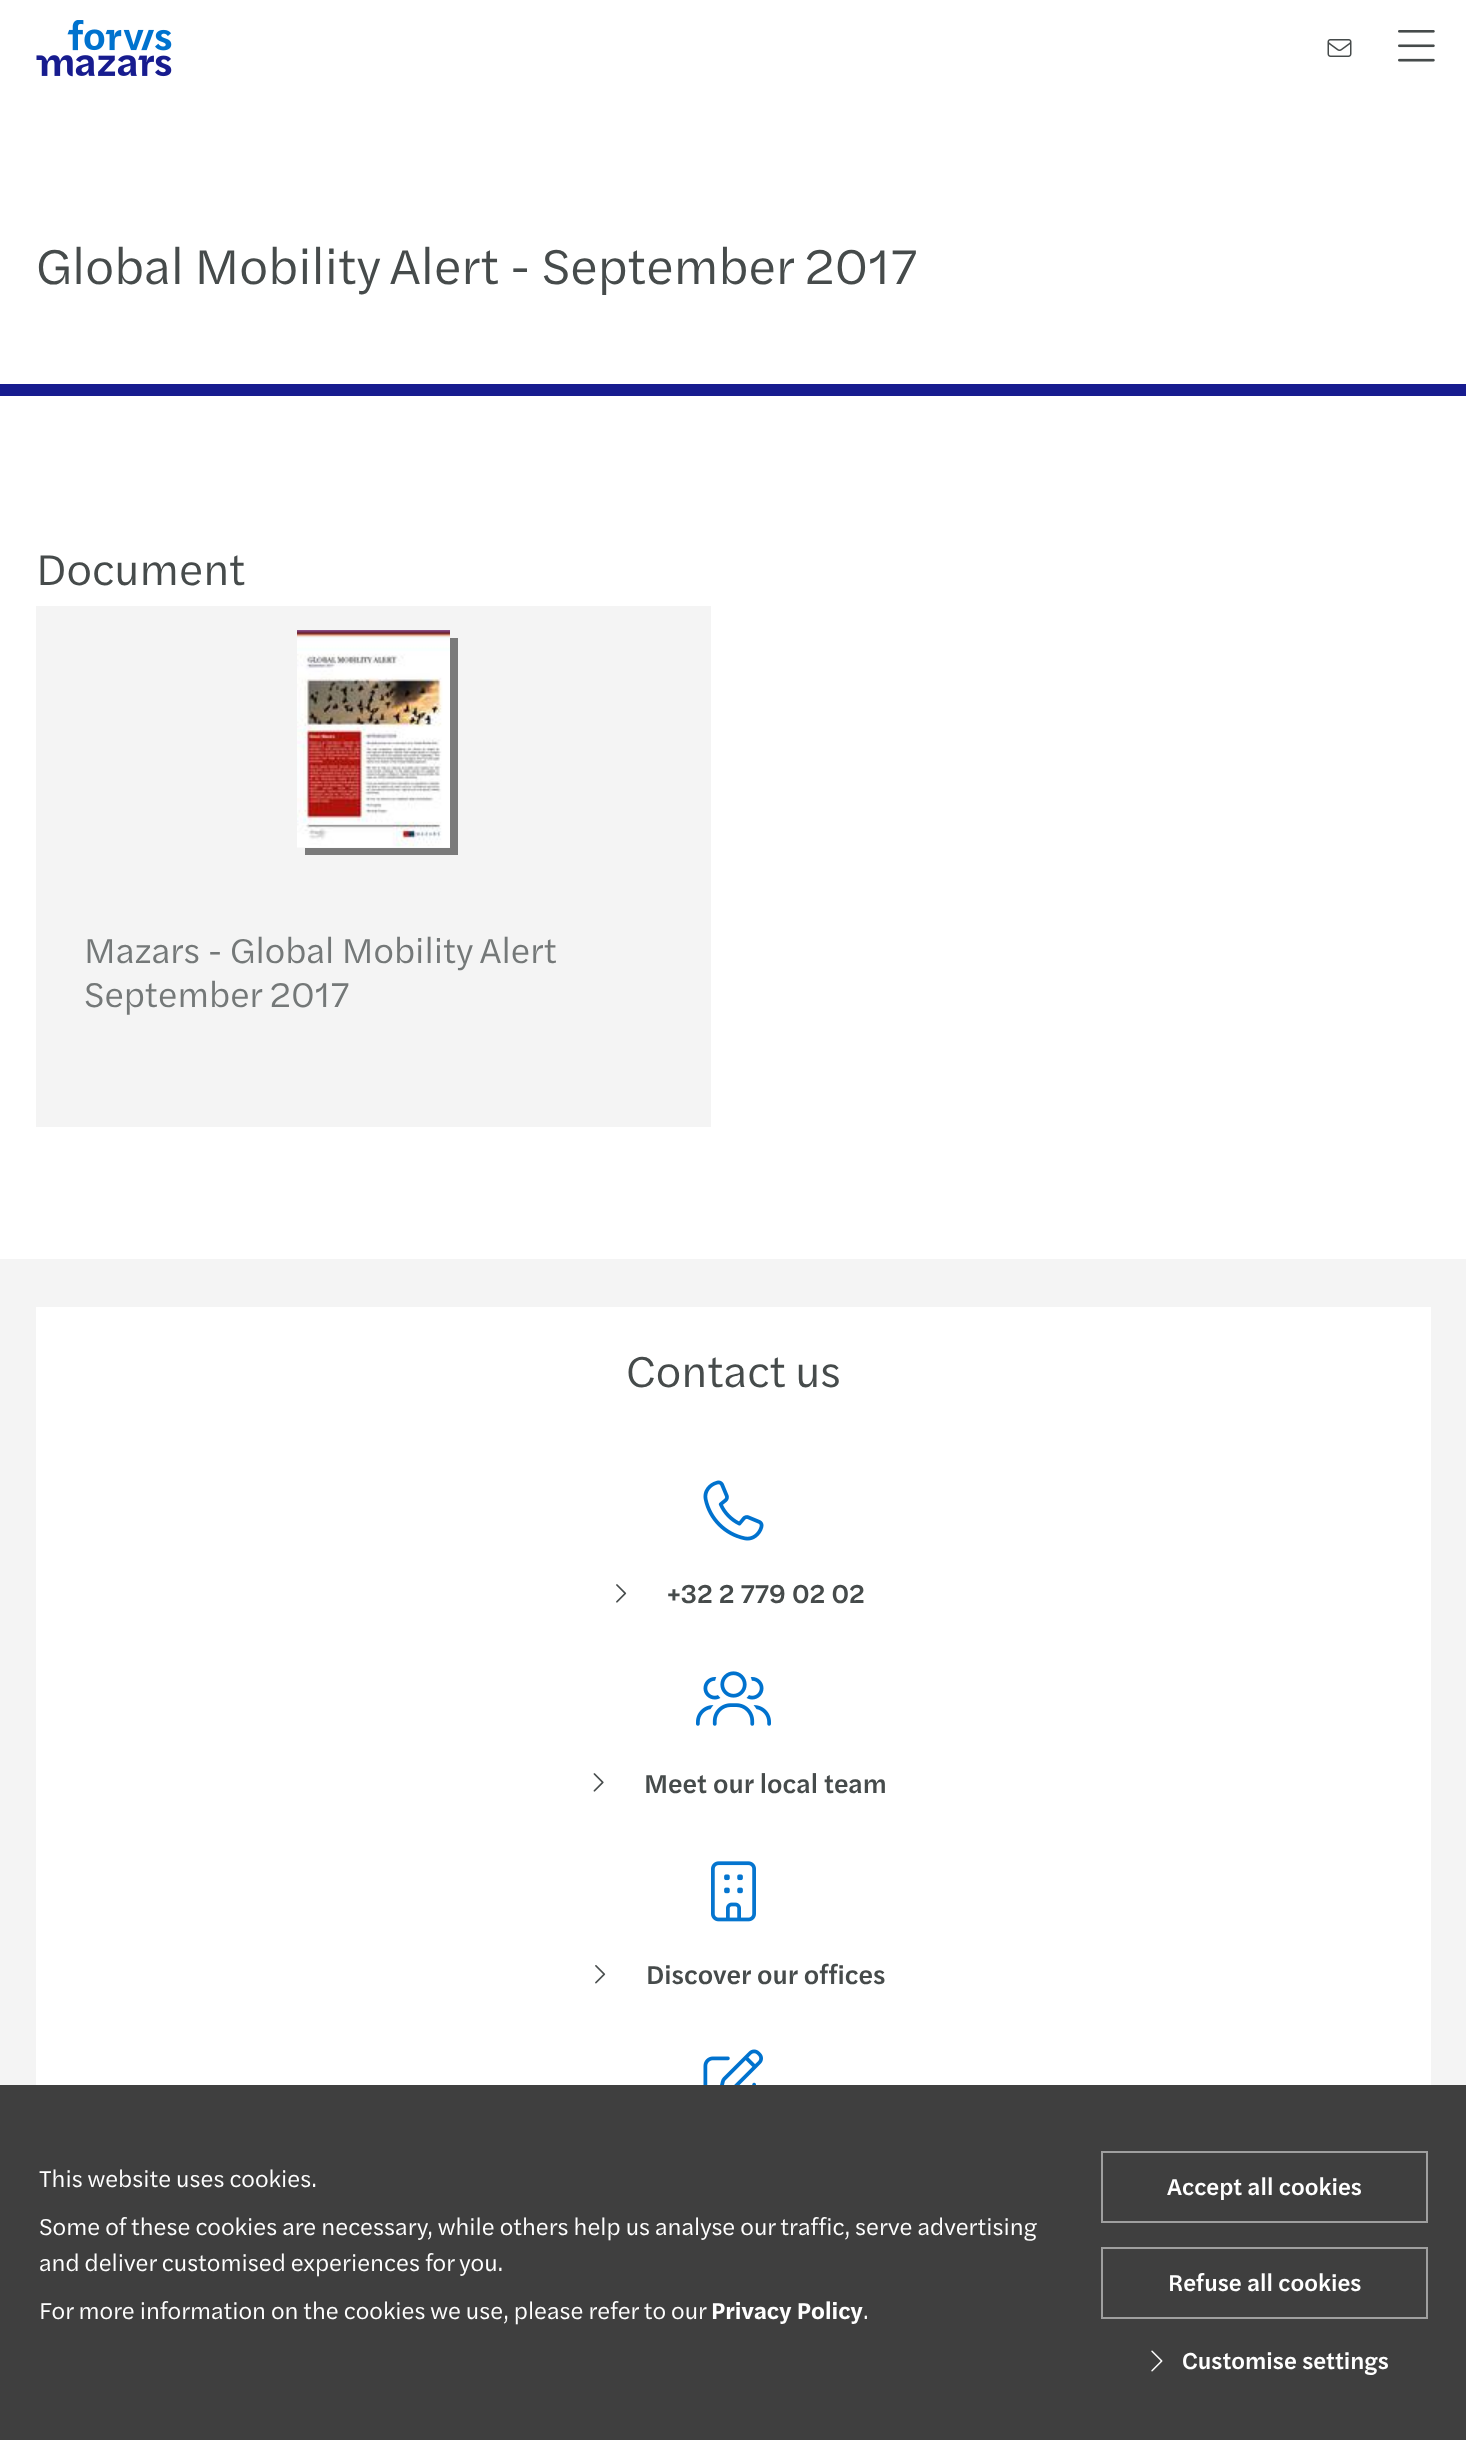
<!DOCTYPE html>
<meta charset="utf-8">
<style>body { margin: 0 } canvas { display: block }</style>
<canvas id="canvas" width="1466" height="2440"></canvas>
<script type="module">
  const canvas = document.getElementById("canvas");
  const ctx = canvas.getContext("2d");
  ctx.miterLimit = 4;
  ctx.fontKerning = "normal";
  async function loadImage(src) {
    const img = new Image();
    img.src = src;
    await img.decode();
    return img;
  }

  ctx.fillStyle = "#ffffff";
  ctx.fillRect(0, 0, 1466, 2440);
  ctx.drawImage(await loadImage("img1.png"), 36, 20, 136, 57);
  ctx.drawImage(await loadImage("img2.png"), 1327, 39, 25, 18);
  ctx.drawImage(await loadImage("img3.png"), 1398, 30, 37, 32);
  ctx.font = "51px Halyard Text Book";
  ctx.fillStyle = "#464b4b";
  ctx.fillText("Global Mobility Alert - September 2017", 36, 284);
  ctx.fillStyle = "#171c8f";
  ctx.fillRect(0, 384, 1466, 12);
  ctx.font = "45px Halyard Text Book";
  ctx.fillStyle = "#464b4b";
  ctx.fillText("Document", 36, 585);
  ctx.fillStyle = "#f4f4f4";
  ctx.fillRect(36, 606, 675, 521);
  ctx.fillStyle = "#7a7a7a";
  ctx.beginPath();
  ctx.moveTo(305, 848);
  ctx.lineTo(305, 855);
  ctx.lineTo(458, 855);
  ctx.lineTo(458, 638);
  ctx.lineTo(450, 638);
  ctx.lineTo(450, 848);
  ctx.closePath();
  ctx.fill();
  ctx.drawImage(await loadImage("img4.png"), 297, 630, 153, 218);
  ctx.font = "36px Halyard Text Book";
  ctx.fillStyle = "#747878";
  ctx.fillText("Mazars - Global Mobility Alert", 84, 963);
  ctx.fillText("September 2017", 84, 1007);
  ctx.fillStyle = "#f4f4f4";
  ctx.fillRect(0, 1259, 1466, 826);
  ctx.fillStyle = "#ffffff";
  ctx.fillRect(36, 1307, 1395, 778);
  ctx.font = "45px Halyard Text Book";
  ctx.fillStyle = "#464b4b";
  ctx.fillText("Contact us", 626, 1387);
  ctx.drawImage(await loadImage("img5.png"), 703, 1480, 61, 61);
  ctx.drawImage(await loadImage("img6.png"), 616, 1584, 11, 19);
  ctx.font = "500 27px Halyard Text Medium";
  ctx.fillText("+32 2 779 02 02", 667, 1603);
  ctx.drawImage(await loadImage("img7.png"), 696, 1671, 75, 55);
  ctx.drawImage(await loadImage("img8.png"), 593, 1773, 11, 19);
  ctx.fillText("Meet our local team", 644, 1793);
  ctx.drawImage(await loadImage("img9.png"), 711, 1861, 45, 61);
  ctx.drawImage(await loadImage("img10.png"), 595, 1965, 11, 19);
  ctx.fillText("Discover our offices", 646, 1984);
  ctx.drawImage(await loadImage("img11.png"), 703, 2049, 60, 36);
  ctx.fillStyle = "#3f3f3f";
  ctx.fillRect(0, 2085, 1466, 355);
  ctx.font = "24px Halyard Text Book";
  ctx.fillStyle = "#ffffff";
  ctx.fillText("This website uses cookies.", 39, 2187);
  ctx.fillText("Some of these cookies are necessary, while others help us analyse our traffic, serve advertising", 39, 2235);
  ctx.fillText("and deliver customised experiences for you.", 39, 2271);
  ctx.fillText("For more information on the cookies we use, please refer to our", 39, 2319);
  ctx.font = "600 24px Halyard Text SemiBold";
  ctx.fillText("Privacy Policy", 711, 2319);
  ctx.font = "24px Halyard Text Book";
  ctx.fillText(".", 863, 2319);
  ctx.strokeStyle = "#9f9f9f";
  ctx.lineWidth = 2;
  ctx.strokeRect(1102, 2152, 325, 70);
  ctx.font = "500 24px Halyard Text Medium";
  ctx.fillText("Accept all cookies", 1167, 2195);
  ctx.strokeRect(1102, 2248, 325, 70);
  ctx.fillText("Refuse all cookies", 1168, 2291);
  ctx.drawImage(await loadImage("img12.png"), 1151, 2350, 12, 22);
  ctx.fillText("Customise settings", 1182, 2369);
</script>
